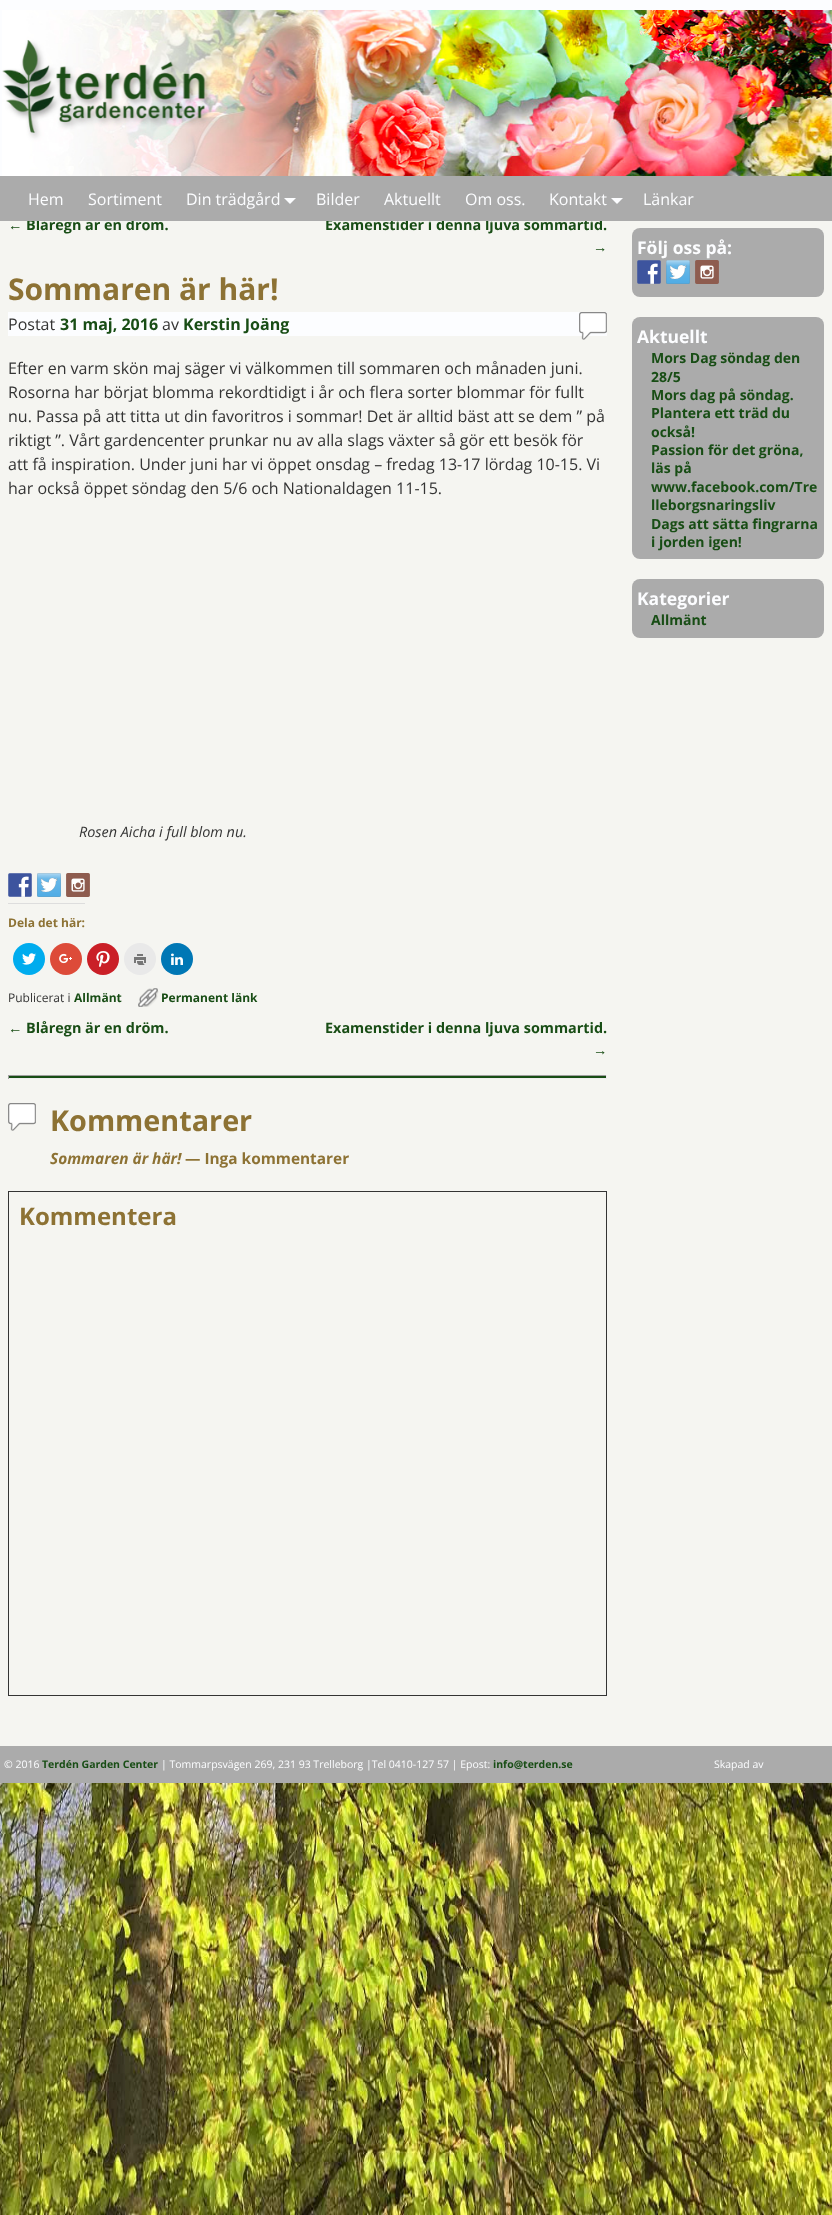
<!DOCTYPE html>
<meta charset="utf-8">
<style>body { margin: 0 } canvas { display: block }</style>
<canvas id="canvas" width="832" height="2215"></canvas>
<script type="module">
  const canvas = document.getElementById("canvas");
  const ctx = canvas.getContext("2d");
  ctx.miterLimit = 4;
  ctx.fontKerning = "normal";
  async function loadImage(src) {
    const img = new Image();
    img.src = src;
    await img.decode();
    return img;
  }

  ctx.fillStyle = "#ffffff";
  ctx.fillRect(0, 0, 832, 2215);
  ctx.fillStyle = "#f5f5f1";
  ctx.fillRect(0, 221, 832, 1525);
  ctx.fillStyle = "#fcfdff";
  ctx.fillRect(0, 0, 832, 176);
  ctx.drawImage(await loadImage("img1.png"), 2, 10, 830, 166);
  ctx.font = "bold 14.4px Open Sans";
  ctx.fillStyle = "#184d15";
  ctx.fillText("Blåregn är en dröm.", 26, 230);
  ctx.fillText("Examenstider i denna ljuva sommartid.", 325, 230);
  ctx.fillStyle = "#ababab";
  ctx.fillRect(0, 176, 832, 45);
  ctx.font = "16px Open Sans";
  ctx.fillStyle = "#fcfdff";
  ctx.fillText("Hem", 28, 205);
  ctx.fillText("Sortiment", 88, 205);
  ctx.fillText("Din trädgård", 186, 205);
  ctx.beginPath();
  ctx.moveTo(284, 198);
  ctx.lineTo(296, 198);
  ctx.lineTo(290, 204);
  ctx.closePath();
  ctx.fill();
  ctx.fillText("Bilder", 316, 205);
  ctx.fillText("Aktuellt", 384, 205);
  ctx.fillText("Om oss.", 465, 205);
  ctx.fillText("Kontakt", 549, 205);
  ctx.beginPath();
  ctx.moveTo(611, 198);
  ctx.lineTo(623, 198);
  ctx.lineTo(617, 204);
  ctx.closePath();
  ctx.fill();
  ctx.fillText("Länkar", 643, 205);
  ctx.font = "14.4px Liberation Sans";
  ctx.fillStyle = "#184d15";
  ctx.fillText("←", 8, 230);
  ctx.fillText("→", 593, 252);
  ctx.font = "bold 30px Open Sans";
  ctx.fillStyle = "#8d7234";
  ctx.fillText("Sommaren är här!", 8, 300);
  ctx.fillStyle = "#fcfdff";
  ctx.fillRect(8, 312, 599, 24);
  ctx.font = "16px Open Sans";
  ctx.fillStyle = "#343434";
  ctx.fillText("Postat", 8, 330);
  ctx.font = "bold 16px Open Sans";
  ctx.fillStyle = "#184d15";
  ctx.fillText("31 maj, 2016", 60, 330);
  ctx.font = "16px Open Sans";
  ctx.fillStyle = "#343434";
  ctx.fillText("av", 162, 330);
  ctx.font = "bold 16px Open Sans";
  ctx.fillStyle = "#184d15";
  ctx.fillText("Kerstin Joäng", 183, 330);
  ctx.drawImage(await loadImage("img2.png"), 579, 312, 28, 28);
  ctx.font = "16px Open Sans";
  ctx.fillStyle = "#343434";
  ctx.fillText("Efter en varm skön maj säger vi välkommen till sommaren och månaden juni.", 8, 374);
  ctx.fillText("Rosorna har börjat blomma rekordtidigt i år och flera sorter blommar för fullt", 8, 398);
  ctx.fillText("nu. Passa på att titta ut din favoritros i sommar! Det är alltid bäst att se dem ” på", 8, 422);
  ctx.fillText("riktigt ”. Vårt gardencenter prunkar nu av alla slags växter så gör ett besök för", 8, 446);
  ctx.fillText("att få inspiration. Under juni har vi öppet onsdag – fredag 13-17 lördag 10-15. Vi", 8, 470);
  ctx.fillText("har också öppet söndag den 5/6 och Nationaldagen 11-15.", 8, 494);
  ctx.font = "italic 14.4px Open Sans";
  ctx.fillText("Rosen Aicha i full blom nu.", 79, 837);
  ctx.drawImage(await loadImage("img3.png"), 8, 873, 24, 24);
  ctx.drawImage(await loadImage("img4.png"), 37, 873, 24, 24);
  ctx.drawImage(await loadImage("img5.png"), 66, 873, 24, 24);
  ctx.fillStyle = "#dddddd";
  ctx.fillRect(8, 903, 77, 1);
  ctx.font = "bold 12px Open Sans";
  ctx.fillStyle = "#8d7234";
  ctx.fillText("Dela det här:", 8, 927);
  ctx.fillStyle = "#00acee";
  ctx.beginPath();
  ctx.arc(29, 959, 16, 0, Math.PI * 2);
  ctx.fill();
  ctx.drawImage(await loadImage("img6.png"), 22, 953, 14, 12);
  ctx.fillStyle = "#dd4b39";
  ctx.beginPath();
  ctx.arc(66, 959, 16, 0, Math.PI * 2);
  ctx.fill();
  ctx.drawImage(await loadImage("img7.png"), 59, 953, 13, 11);
  ctx.fillStyle = "#ca1f27";
  ctx.beginPath();
  ctx.arc(103, 959, 16, 0, Math.PI * 2);
  ctx.fill();
  ctx.drawImage(await loadImage("img8.png"), 96, 951, 14, 16);
  ctx.fillStyle = "#e9e9e9";
  ctx.beginPath();
  ctx.arc(140, 959, 16, 0, Math.PI * 2);
  ctx.fill();
  ctx.drawImage(await loadImage("img9.png"), 134, 954, 12, 11);
  ctx.fillStyle = "#0077b5";
  ctx.beginPath();
  ctx.arc(177, 959, 16, 0, Math.PI * 2);
  ctx.fill();
  ctx.drawImage(await loadImage("img10.png"), 171, 953, 12, 12);
  ctx.font = "12px Open Sans";
  ctx.fillStyle = "#343434";
  ctx.fillText("Publicerat i", 8, 1002);
  ctx.font = "bold 12px Open Sans";
  ctx.fillStyle = "#184d15";
  ctx.fillText("Allmänt", 74, 1002);
  ctx.drawImage(await loadImage("img11.png"), 138, 988, 21, 19);
  ctx.fillText("Permanent länk", 161, 1002);
  ctx.font = "14.4px Liberation Sans";
  ctx.fillText("←", 8, 1033);
  ctx.font = "bold 14.4px Open Sans";
  ctx.fillText("Blåregn är en dröm.", 26, 1033);
  ctx.fillText("Examenstider i denna ljuva sommartid.", 325, 1033);
  ctx.font = "14.4px Liberation Sans";
  ctx.fillText("→", 593, 1055);
  ctx.fillRect(8, 1076, 599, 2);
  ctx.fillStyle = "#9f9f9f";
  ctx.fillRect(8, 1075, 599, 1);
  ctx.fillStyle = "#eeeeee";
  ctx.fillRect(606, 1075, 1, 4);
  ctx.fillRect(8, 1078, 599, 1);
  ctx.fillStyle = "#9f9f9f";
  ctx.fillRect(8, 1075, 1, 4);
  ctx.drawImage(await loadImage("img12.png"), 8, 1103, 28, 28);
  ctx.font = "bold 28.75px Open Sans";
  ctx.fillStyle = "#8d7234";
  ctx.fillText("Kommentarer", 50, 1131);
  ctx.font = "italic bold 15.4px Open Sans";
  ctx.fillText("Sommaren är här!", 50, 1164);
  ctx.font = "bold 15.4px Open Sans";
  ctx.fillText("— Inga kommentarer", 185, 1164);
  ctx.strokeStyle = "#343434";
  ctx.strokeRect(8.5, 1191.5, 598, 504);
  ctx.font = "bold 24px Open Sans";
  ctx.fillText("Kommentera", 19, 1225);
  ctx.fillStyle = "#ababab";
  ctx.beginPath();
  ctx.roundRect(632, 228, 192, 69, 8);
  ctx.fill();
  ctx.font = "bold 17.5px Open Sans";
  ctx.fillStyle = "#fcfdff";
  ctx.fillText("Följ oss på:", 637, 254);
  ctx.drawImage(await loadImage("img13.png"), 637, 260, 24, 24);
  ctx.drawImage(await loadImage("img14.png"), 666, 260, 24, 24);
  ctx.drawImage(await loadImage("img15.png"), 695, 260, 24, 24);
  ctx.fillStyle = "#ababab";
  ctx.beginPath();
  ctx.roundRect(632, 317, 192, 242, 8);
  ctx.fill();
  ctx.fillStyle = "#fcfdff";
  ctx.fillText("Aktuellt", 637, 343);
  ctx.font = "bold 14px Open Sans";
  ctx.fillStyle = "#184d15";
  ctx.fillText("Mors Dag söndag den", 651, 363);
  ctx.fillText("28/5", 651, 382);
  ctx.fillText("Mors dag på söndag.", 651, 400);
  ctx.fillText("Plantera ett träd du", 651, 418);
  ctx.fillText("också!", 651, 437);
  ctx.fillText("Passion för det gröna,", 651, 455);
  ctx.fillText("läs på", 651, 473);
  ctx.fillText("www.facebook.com/Tre", 651, 492);
  ctx.fillText("lleborgsnaringsliv", 651, 510);
  ctx.fillText("Dags att sätta fingrarna", 651, 529);
  ctx.fillText("i jorden igen!", 651, 547);
  ctx.fillStyle = "#ababab";
  ctx.beginPath();
  ctx.roundRect(632, 579, 192, 59, 8);
  ctx.fill();
  ctx.font = "bold 17.5px Open Sans";
  ctx.fillStyle = "#fcfdff";
  ctx.fillText("Kategorier", 637, 605);
  ctx.font = "bold 14px Open Sans";
  ctx.fillStyle = "#184d15";
  ctx.fillText("Allmänt", 651, 625);
  ctx.fillStyle = "#ababab";
  ctx.fillRect(0, 1746, 832, 37);
  ctx.font = "10.5px Open Sans";
  ctx.fillStyle = "#fcfdff";
  ctx.fillText("© 2016", 4, 1768);
  ctx.font = "bold 10.5px Open Sans";
  ctx.fillStyle = "#184d15";
  ctx.fillText("Terdén Garden Center", 42, 1768);
  ctx.font = "10.5px Open Sans";
  ctx.fillStyle = "#fcfdff";
  ctx.fillText("| Tommarpsvägen 269, 231 93 Trelleborg |Tel 0410-127 57 | Epost:", 161, 1768);
  ctx.font = "bold 10.5px Open Sans";
  ctx.fillStyle = "#184d15";
  ctx.fillText("info@terden.se", 493, 1768);
  ctx.font = "10.5px Open Sans";
  ctx.fillStyle = "#fcfdff";
  ctx.fillText("Skapad av", 714, 1768);
  ctx.drawImage(await loadImage("img16.png"), 0, 1783, 832, 432);
</script>
